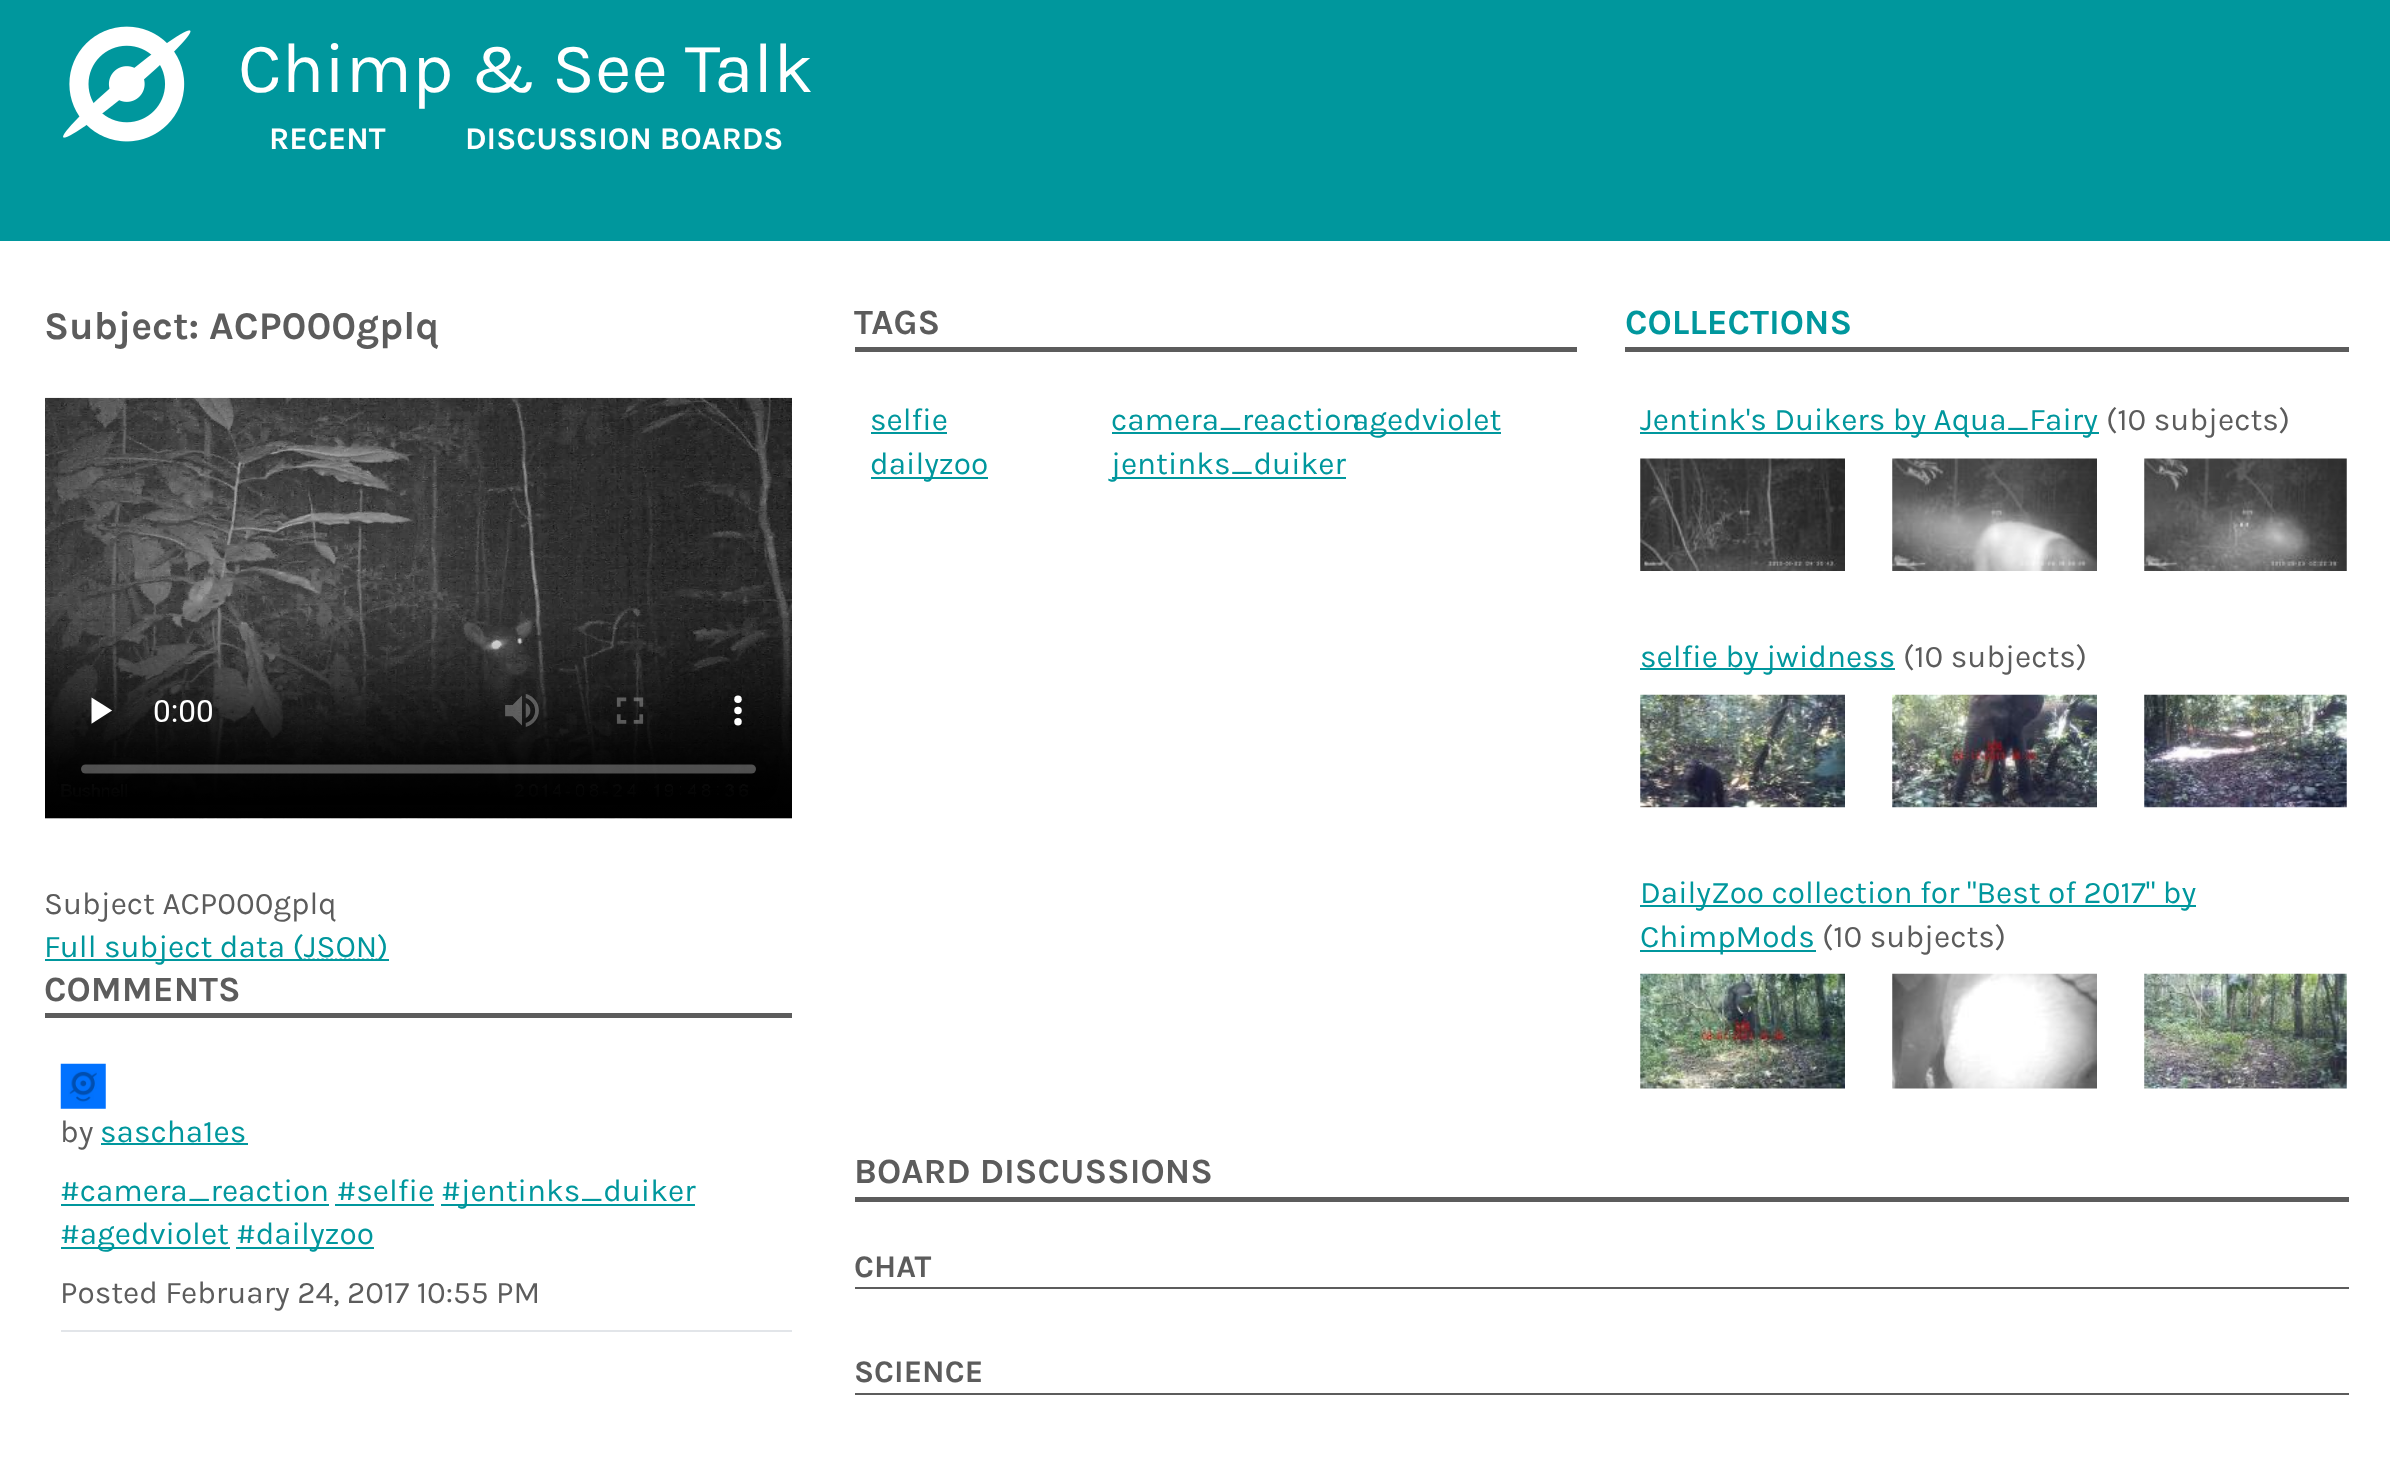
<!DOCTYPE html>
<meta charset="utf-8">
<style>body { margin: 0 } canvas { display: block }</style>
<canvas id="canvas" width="2390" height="1472"></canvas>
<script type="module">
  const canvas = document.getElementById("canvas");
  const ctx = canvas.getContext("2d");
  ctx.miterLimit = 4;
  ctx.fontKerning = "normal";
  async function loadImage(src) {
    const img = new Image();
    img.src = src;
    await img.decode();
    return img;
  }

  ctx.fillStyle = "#ffffff";
  ctx.fillRect(0, 0, 2390, 1472);
  ctx.fillStyle = "#00979d";
  ctx.fillRect(0, 0, 2390, 241);
  ctx.drawImage(await loadImage("img1.png"), 63, 26, 128, 116);
  ctx.font = "71px Karla";
  ctx.fillStyle = "#ffffff";
  ctx.fillText("Chimp & See Talk", 238, 92);
  ctx.font = "bold 31.5px Karla";
  ctx.fillText("RECENT", 269, 149);
  ctx.fillText("DISCUSSION BOARDS", 465, 149);
  ctx.font = "bold 39.4px Karla";
  ctx.fillStyle = "#5c5c5c";
  ctx.fillText("Subject: ACP000gplq", 44, 339);
  ctx.drawImage(await loadImage("img2.png"), 45, 397, 747, 422);
  ctx.font = "31.5px Karla";
  ctx.fillText("Subject ACP000gplq", 44, 914);
  ctx.fillStyle = "#00979d";
  ctx.fillRect(45, 959, 259, 2);
  ctx.fillText("Full subject data (JSON", 44, 957);
  ctx.beginPath();
  ctx.moveTo(303.5, 959.5);
  ctx.lineTo(377.5, 959.5);
  ctx.strokeStyle = "#00979d";
  ctx.lineWidth = 2.2;
  ctx.setLineDash([2.25, 2.25]);
  ctx.stroke();
  ctx.fillRect(304, 959, 85, 2);
  ctx.fillText(")", 377, 957);
  ctx.fillStyle = "#5c5c5c";
  ctx.fillRect(45, 1013, 747, 5);
  ctx.font = "bold 35.5px Karla";
  ctx.fillText("COMMENTS", 44, 1001);
  ctx.fillStyle = "#e2e5e9";
  ctx.fillRect(61, 1330, 731, 2);
  ctx.drawImage(await loadImage("img3.png"), 60, 1063, 46, 46);
  ctx.font = "31.5px Karla";
  ctx.fillStyle = "#5c5c5c";
  ctx.fillText("by", 60, 1142);
  ctx.fillStyle = "#00979d";
  ctx.fillText("sascha1es", 100, 1142);
  ctx.fillRect(101, 1143, 147, 2);
  ctx.fillText("#camera_reaction #selfie", 60, 1201);
  ctx.fillRect(61, 1204, 268, 2);
  ctx.fillRect(441, 1204, 254, 2);
  ctx.fillText("#jentinks_duiker", 441, 1201);
  ctx.fillRect(335, 1204, 99, 2);
  ctx.fillRect(61, 1247, 169, 2);
  ctx.fillText("#agedviolet", 60, 1244);
  ctx.fillRect(236, 1247, 138, 2);
  ctx.fillText("#dailyzoo", 236, 1244);
  ctx.fillStyle = "#5c5c5c";
  ctx.fillText("Posted February 24, 2017 10:55 PM", 60, 1303);
  ctx.fillRect(855, 347, 722, 5);
  ctx.font = "bold 35.5px Karla";
  ctx.fillText("TAGS", 854, 334);
  ctx.font = "31.5px Karla";
  ctx.fillStyle = "#00979d";
  ctx.fillText("selfie", 870, 430);
  ctx.fillRect(871, 432, 76, 2);
  ctx.fillText("camera_reaction", 1111, 430);
  ctx.fillRect(1112, 432, 389, 2);
  ctx.fillText("agedviolet", 1352, 430);
  ctx.fillRect(871, 477, 117, 2);
  ctx.fillText("dailyzoo", 870, 474);
  ctx.fillRect(1112, 477, 234, 2);
  ctx.fillText("jentinks_duiker", 1111, 474);
  ctx.fillStyle = "#5c5c5c";
  ctx.fillRect(1625, 347, 724, 5);
  ctx.font = "bold 35.5px Karla";
  ctx.fillStyle = "#00979d";
  ctx.fillText("COLLECTIONS", 1625, 334);
  ctx.fillRect(1640, 432, 459, 2);
  ctx.font = "31.5px Karla";
  ctx.fillText("Jentink's Duikers by Aqua_Fairy", 1640, 430);
  ctx.fillStyle = "#5c5c5c";
  ctx.fillText("(10 subjects)", 2106, 430);
  ctx.drawImage(await loadImage("img4.png"), 1640, 458, 205, 113);
  ctx.drawImage(await loadImage("img5.png"), 1892, 458, 205, 113);
  ctx.drawImage(await loadImage("img6.png"), 2144, 458, 203, 113);
  ctx.fillStyle = "#00979d";
  ctx.fillRect(1640, 668, 255, 2);
  ctx.fillText("selfie by jwidness", 1640, 667);
  ctx.fillStyle = "#5c5c5c";
  ctx.fillText("(10 subjects)", 1903, 667);
  ctx.drawImage(await loadImage("img7.png"), 1640, 694, 205, 114);
  ctx.drawImage(await loadImage("img8.png"), 1892, 694, 205, 114);
  ctx.drawImage(await loadImage("img9.png"), 2144, 694, 203, 114);
  ctx.fillStyle = "#00979d";
  ctx.fillRect(1640, 905, 556, 2);
  ctx.fillText("DailyZoo collection for \"Best of 2017\" by", 1640, 903);
  ctx.fillRect(1640, 950, 176, 2);
  ctx.fillText("ChimpMods", 1640, 947);
  ctx.fillStyle = "#5c5c5c";
  ctx.fillText("(10 subjects)", 1822, 947);
  ctx.drawImage(await loadImage("img10.png"), 1640, 973, 205, 116);
  ctx.drawImage(await loadImage("img11.png"), 1892, 973, 205, 116);
  ctx.drawImage(await loadImage("img12.png"), 2144, 973, 203, 116);
  ctx.fillRect(855, 1197, 1494, 5);
  ctx.font = "bold 35.5px Karla";
  ctx.fillText("BOARD DISCUSSIONS", 854, 1183);
  ctx.fillRect(855, 1287, 1494, 2);
  ctx.font = "bold 31.5px Karla";
  ctx.fillText("CHAT", 854, 1277);
  ctx.fillRect(855, 1393, 1494, 2);
  ctx.fillText("SCIENCE", 854, 1382);
</script>
